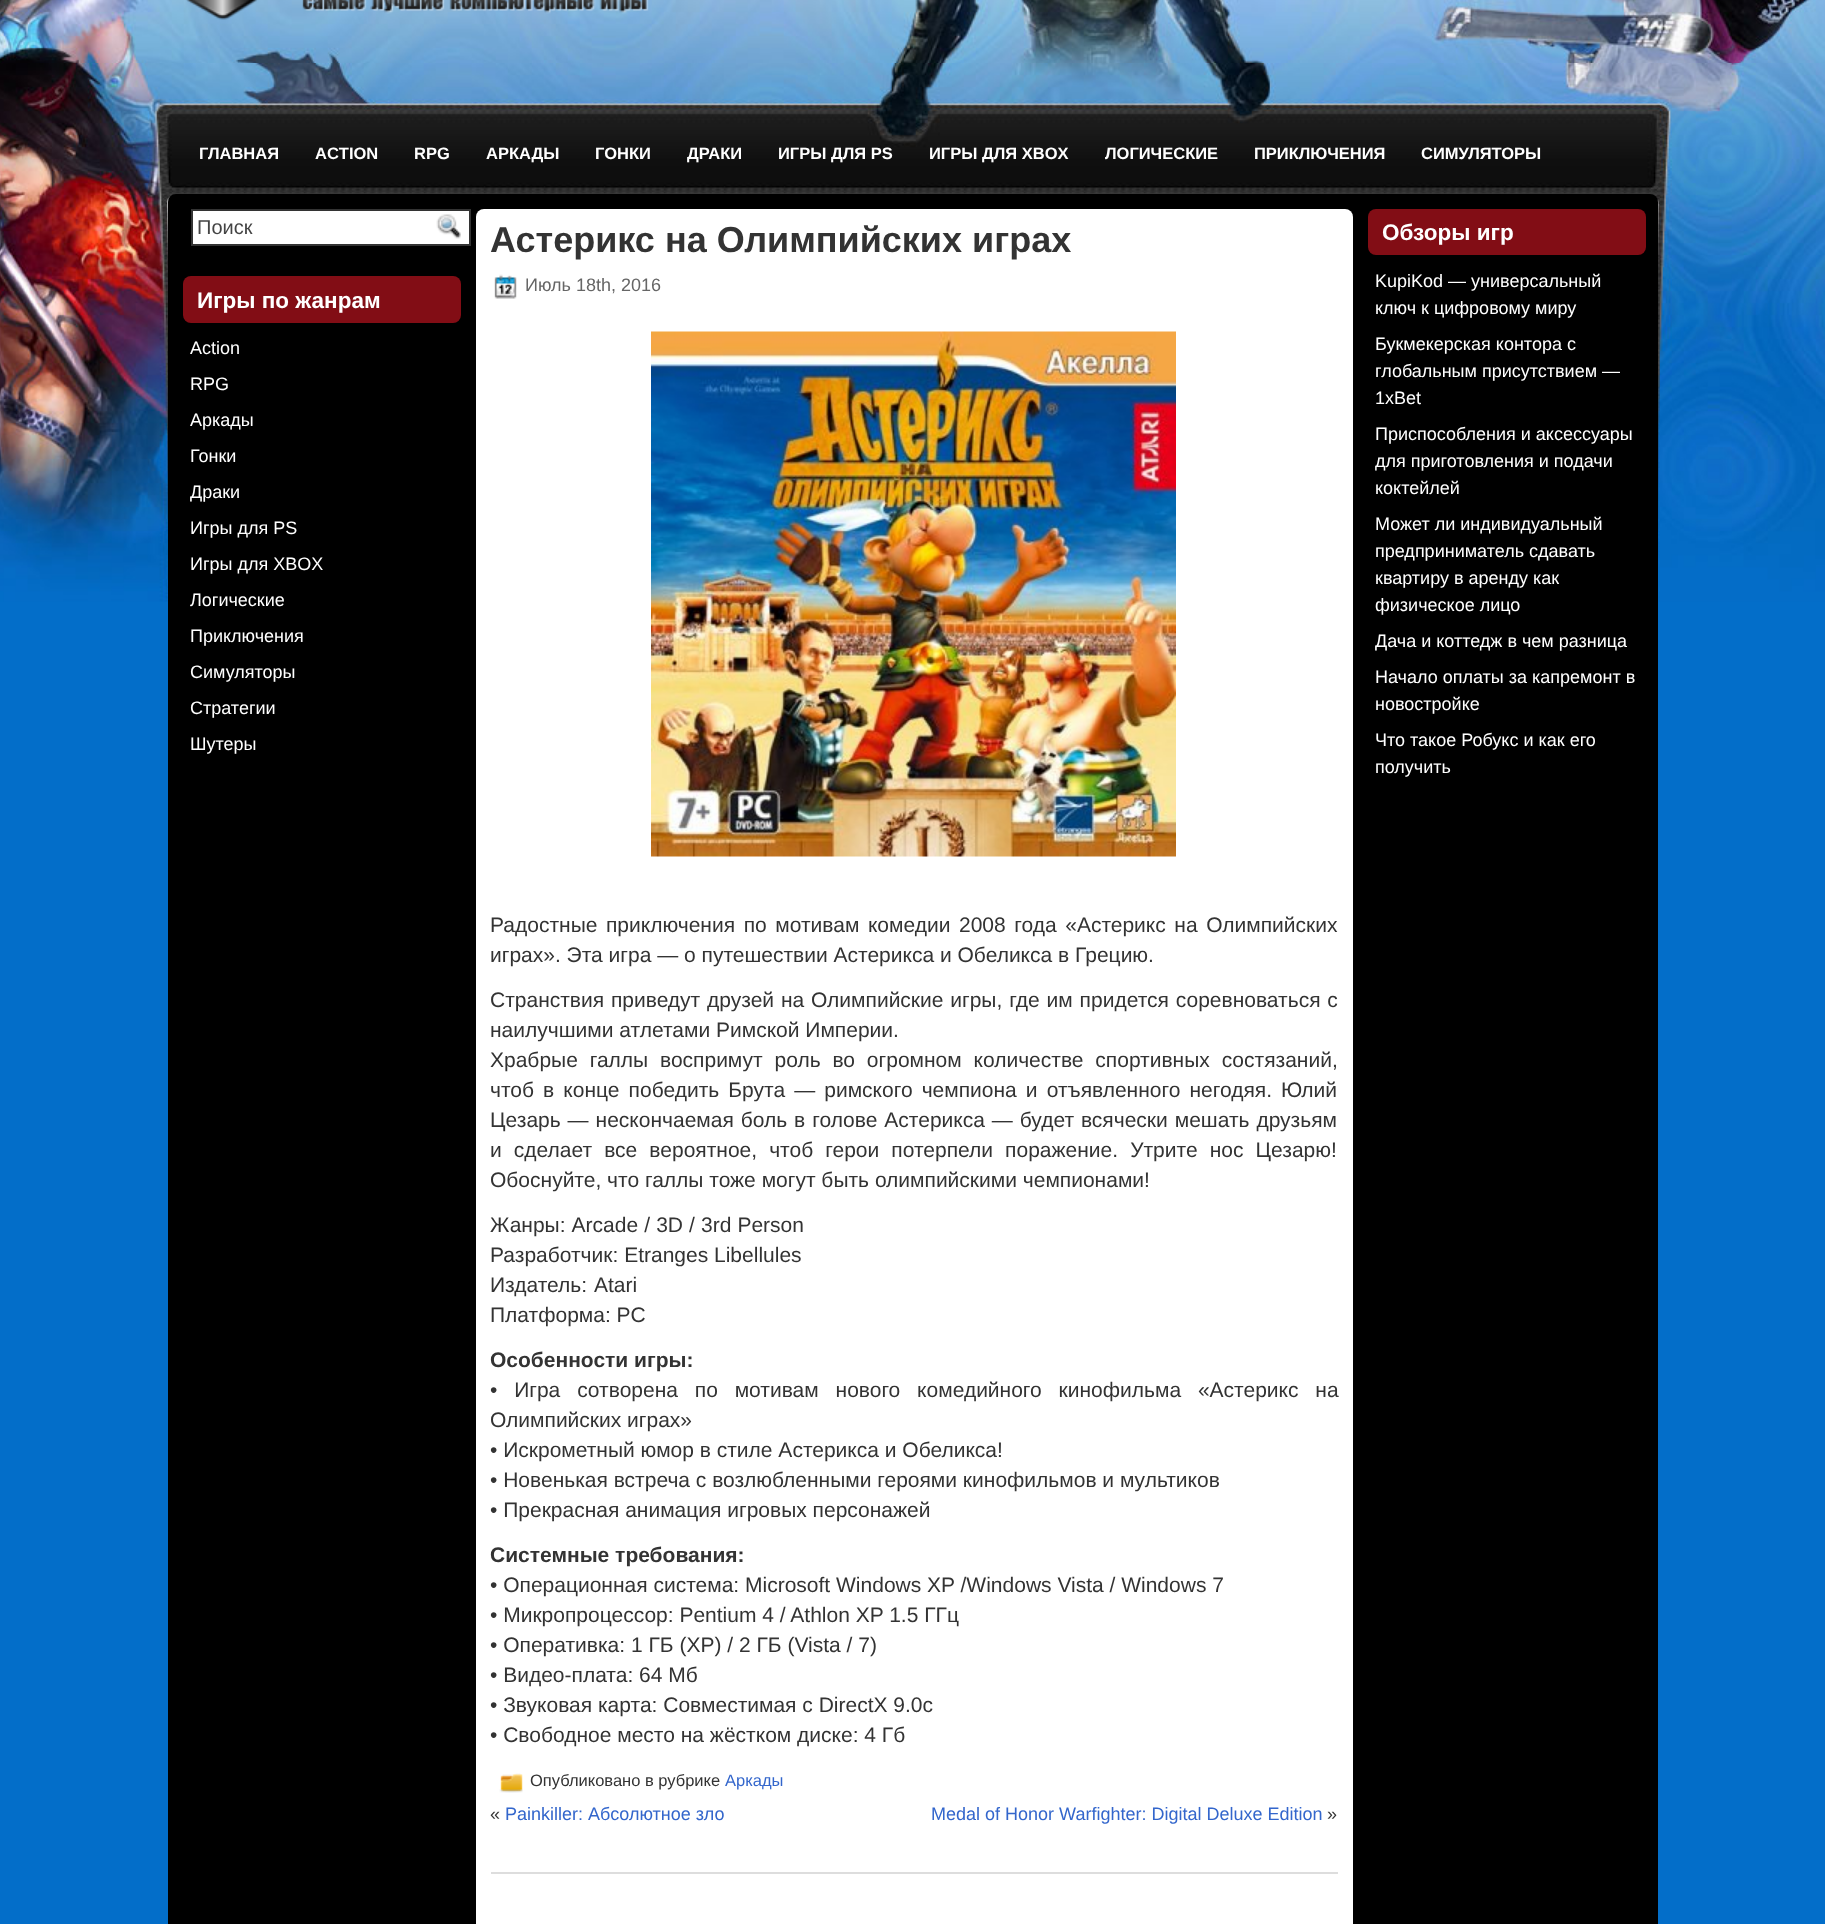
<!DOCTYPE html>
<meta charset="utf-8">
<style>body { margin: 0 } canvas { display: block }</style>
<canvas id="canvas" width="1825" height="1924"></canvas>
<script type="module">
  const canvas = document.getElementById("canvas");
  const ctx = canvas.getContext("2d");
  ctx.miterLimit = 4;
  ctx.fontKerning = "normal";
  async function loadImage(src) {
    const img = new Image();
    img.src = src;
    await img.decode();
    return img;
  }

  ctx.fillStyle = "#036ec9";
  ctx.fillRect(0, 0, 1825, 1924);
  ctx.drawImage(await loadImage("img1.png"), 0, 0, 1825, 63);
  ctx.drawImage(await loadImage("img2.png"), 0, 63, 1825, 539);
  ctx.drawImage(await loadImage("img3.png"), 186, 0, 463, 20);
  ctx.font = "bold 16.5px Liberation Sans";
  ctx.fillStyle = "#ffffff";
  ctx.fillText("ГЛАВНАЯ", 199, 159);
  ctx.fillText("ACTION", 315, 159);
  ctx.fillText("RPG", 414, 159);
  ctx.fillText("АРКАДЫ", 486, 159);
  ctx.fillText("ГОНКИ", 595, 159);
  ctx.fillText("ДРАКИ", 687, 159);
  ctx.fillText("ИГРЫ ДЛЯ PS", 778, 159);
  ctx.fillText("ИГРЫ ДЛЯ XBOX", 929, 159);
  ctx.fillText("ЛОГИЧЕСКИЕ", 1105, 159);
  ctx.fillText("ПРИКЛЮЧЕНИЯ", 1254, 159);
  ctx.fillText("СИМУЛЯТОРЫ", 1421, 159);
  ctx.fillStyle = "#000000";
  ctx.beginPath();
  ctx.roundRect(168, 194, 1490, 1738, 8);
  ctx.fill();
  ctx.fillStyle = "#ffffff";
  ctx.beginPath();
  ctx.rect(192, 210, 278, 35);
  ctx.fill();
  ctx.strokeStyle = "#333333";
  ctx.lineWidth = 2;
  ctx.stroke();
  ctx.font = "20px Liberation Sans";
  ctx.fillStyle = "#444444";
  ctx.fillText("Поиск", 197, 234);
  ctx.drawImage(await loadImage("img4.png"), 436, 214, 25, 25);
  ctx.fillStyle = "#820d15";
  ctx.beginPath();
  ctx.roundRect(183, 276, 278, 47, 8);
  ctx.fill();
  ctx.font = "bold 22.5px Liberation Sans";
  ctx.fillStyle = "#ffffff";
  ctx.fillText("Игры по жанрам", 197, 308);
  ctx.font = "18px Liberation Sans";
  ctx.fillText("Action", 190, 354);
  ctx.fillText("RPG", 190, 390);
  ctx.fillText("Аркады", 190, 426);
  ctx.fillText("Гонки", 190, 462);
  ctx.fillText("Драки", 190, 498);
  ctx.fillText("Игры для PS", 190, 534);
  ctx.fillText("Игры для XBOX", 190, 570);
  ctx.fillText("Логические", 190, 606);
  ctx.fillText("Приключения", 190, 642);
  ctx.fillText("Симуляторы", 190, 678);
  ctx.fillText("Стратегии", 190, 714);
  ctx.fillText("Шутеры", 190, 750);
  ctx.beginPath();
  ctx.roundRect(476, 209, 877, 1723, 8);
  ctx.fill();
  ctx.fillStyle = "#dddddd";
  ctx.fillRect(491, 1872, 847, 2);
  ctx.font = "bold 36px Liberation Sans";
  ctx.fillStyle = "#333333";
  ctx.fillText("Астерикс на Олимпийских играх", 490, 252);
  ctx.drawImage(await loadImage("img5.png"), 494, 274, 23, 25);
  ctx.font = "18px Liberation Sans";
  ctx.fillStyle = "#666666";
  ctx.fillText("Июль 18th, 2016", 525, 291);
  ctx.drawImage(await loadImage("img6.png"), 651, 331, 525, 526);
  ctx.wordSpacing = "2.75px";
  ctx.font = "21px Liberation Sans";
  ctx.fillStyle = "#333333";
  ctx.fillText("Радостные приключения по мотивам комедии 2008 года «Астерикс на Олимпийских", 490, 932);
  ctx.wordSpacing = "0px";
  ctx.fillText("играх». Эта игра — о путешествии Астерикса и Обеликса в Грецию.", 490, 962);
  ctx.wordSpacing = "1px";
  ctx.fillText("Странствия приведут друзей на Олимпийские игры, где им придется соревноваться с", 490, 1007);
  ctx.wordSpacing = "0px";
  ctx.fillText("наилучшими атлетами Римской Империи.", 490, 1037);
  ctx.wordSpacing = "6px";
  ctx.fillText("Храбрые галлы воспримут роль во огромном количестве спортивных состязаний,", 490, 1067);
  ctx.wordSpacing = "3.25px";
  ctx.fillText("чтоб в конце победить Брута — римского чемпиона и отъявленного негодяя. Юлий", 490, 1097);
  ctx.wordSpacing = "1.1px";
  ctx.fillText("Цезарь — нескончаемая боль в голове Астерикса — будет всячески мешать друзьям", 490, 1127);
  ctx.wordSpacing = "6.25px";
  ctx.fillText("и сделает все вероятное, чтоб герои потерпели поражение. Утрите нос Цезарю!", 490, 1157);
  ctx.wordSpacing = "0px";
  ctx.fillText("Обоснуйте, что галлы тоже могут быть олимпийскими чемпионами!", 490, 1187);
  ctx.wordSpacing = "0.25px";
  ctx.fillText("Жанры: Arcade / 3D / 3rd Person", 490, 1232);
  ctx.wordSpacing = "0px";
  ctx.fillText("Разработчик: Etranges Libellules", 490, 1262);
  ctx.wordSpacing = "1px";
  ctx.fillText("Издатель: Atari", 490, 1292);
  ctx.wordSpacing = "0px";
  ctx.fillText("Платформа: PC", 490, 1322);
  ctx.font = "bold 21px Liberation Sans";
  ctx.fillText("Особенности игры:", 490, 1367);
  ctx.wordSpacing = "11px";
  ctx.font = "21px Liberation Sans";
  ctx.fillText("• Игра сотворена по мотивам нового комедийного кинофильма «Астерикс на", 490, 1397);
  ctx.wordSpacing = "0px";
  ctx.fillText("Олимпийских играх»", 490, 1427);
  ctx.fillText("• Искрометный юмор в стиле Астерикса и Обеликса!", 490, 1457);
  ctx.fillText("• Новенькая встреча с возлюбленными героями кинофильмов и мультиков", 490, 1487);
  ctx.fillText("• Прекрасная анимация игровых персонажей", 490, 1517);
  ctx.font = "bold 21px Liberation Sans";
  ctx.fillText("Системные требования:", 490, 1562);
  ctx.font = "21px Liberation Sans";
  ctx.fillText("• Операционная система: Microsoft Windows XP /Windows Vista / Windows 7", 490, 1592);
  ctx.fillText("• Микропроцессор: Pentium 4 / Athlon XP 1.5 ГГц", 490, 1622);
  ctx.fillText("• Оперативка: 1 ГБ (XP) / 2 ГБ (Vista / 7)", 490, 1652);
  ctx.fillText("• Видео-плата: 64 Мб", 490, 1682);
  ctx.fillText("• Звуковая карта: Совместимая с DirectX 9.0c", 490, 1712);
  ctx.fillText("• Свободное место на жёстком диске: 4 Гб", 490, 1742);
  ctx.drawImage(await loadImage("img7.png"), 499, 1773, 24, 20);
  ctx.font = "16.5px Liberation Sans";
  ctx.fillText("Опубликовано в рубрике", 530, 1786);
  ctx.fillStyle = "#3366cc";
  ctx.fillText("Аркады", 725, 1786);
  ctx.font = "18px Liberation Sans";
  ctx.fillStyle = "#333333";
  ctx.fillText("«", 490, 1820);
  ctx.fillStyle = "#3366cc";
  ctx.fillText("Painkiller: Абсолютное зло", 505, 1820);
  ctx.fillText("Medal of Honor Warfighter: Digital Deluxe Edition", 931, 1820);
  ctx.fillStyle = "#333333";
  ctx.fillText("»", 1327, 1820);
  ctx.fillStyle = "#820d15";
  ctx.beginPath();
  ctx.roundRect(1368, 209, 278, 46, 8);
  ctx.fill();
  ctx.font = "bold 22.5px Liberation Sans";
  ctx.fillStyle = "#ffffff";
  ctx.fillText("Обзоры игр", 1382, 240);
  ctx.font = "18px Liberation Sans";
  ctx.fillText("KupiKod — универсальный", 1375, 287);
  ctx.fillText("ключ к цифровому миру", 1375, 314);
  ctx.fillText("Букмекерская контора с", 1375, 350);
  ctx.fillText("глобальным присутствием —", 1375, 377);
  ctx.fillText("1xBet", 1375, 404);
  ctx.fillText("Приспособления и аксессуары", 1375, 440);
  ctx.fillText("для приготовления и подачи", 1375, 467);
  ctx.fillText("коктейлей", 1375, 494);
  ctx.fillText("Может ли индивидуальный", 1375, 530);
  ctx.fillText("предприниматель сдавать", 1375, 557);
  ctx.fillText("квартиру в аренду как", 1375, 584);
  ctx.fillText("физическое лицо", 1375, 611);
  ctx.fillText("Дача и коттедж в чем разница", 1375, 647);
  ctx.fillText("Начало оплаты за капремонт в", 1375, 683);
  ctx.fillText("новостройке", 1375, 710);
  ctx.fillText("Что такое Робукс и как его", 1375, 746);
  ctx.fillText("получить", 1375, 773);
</script>
